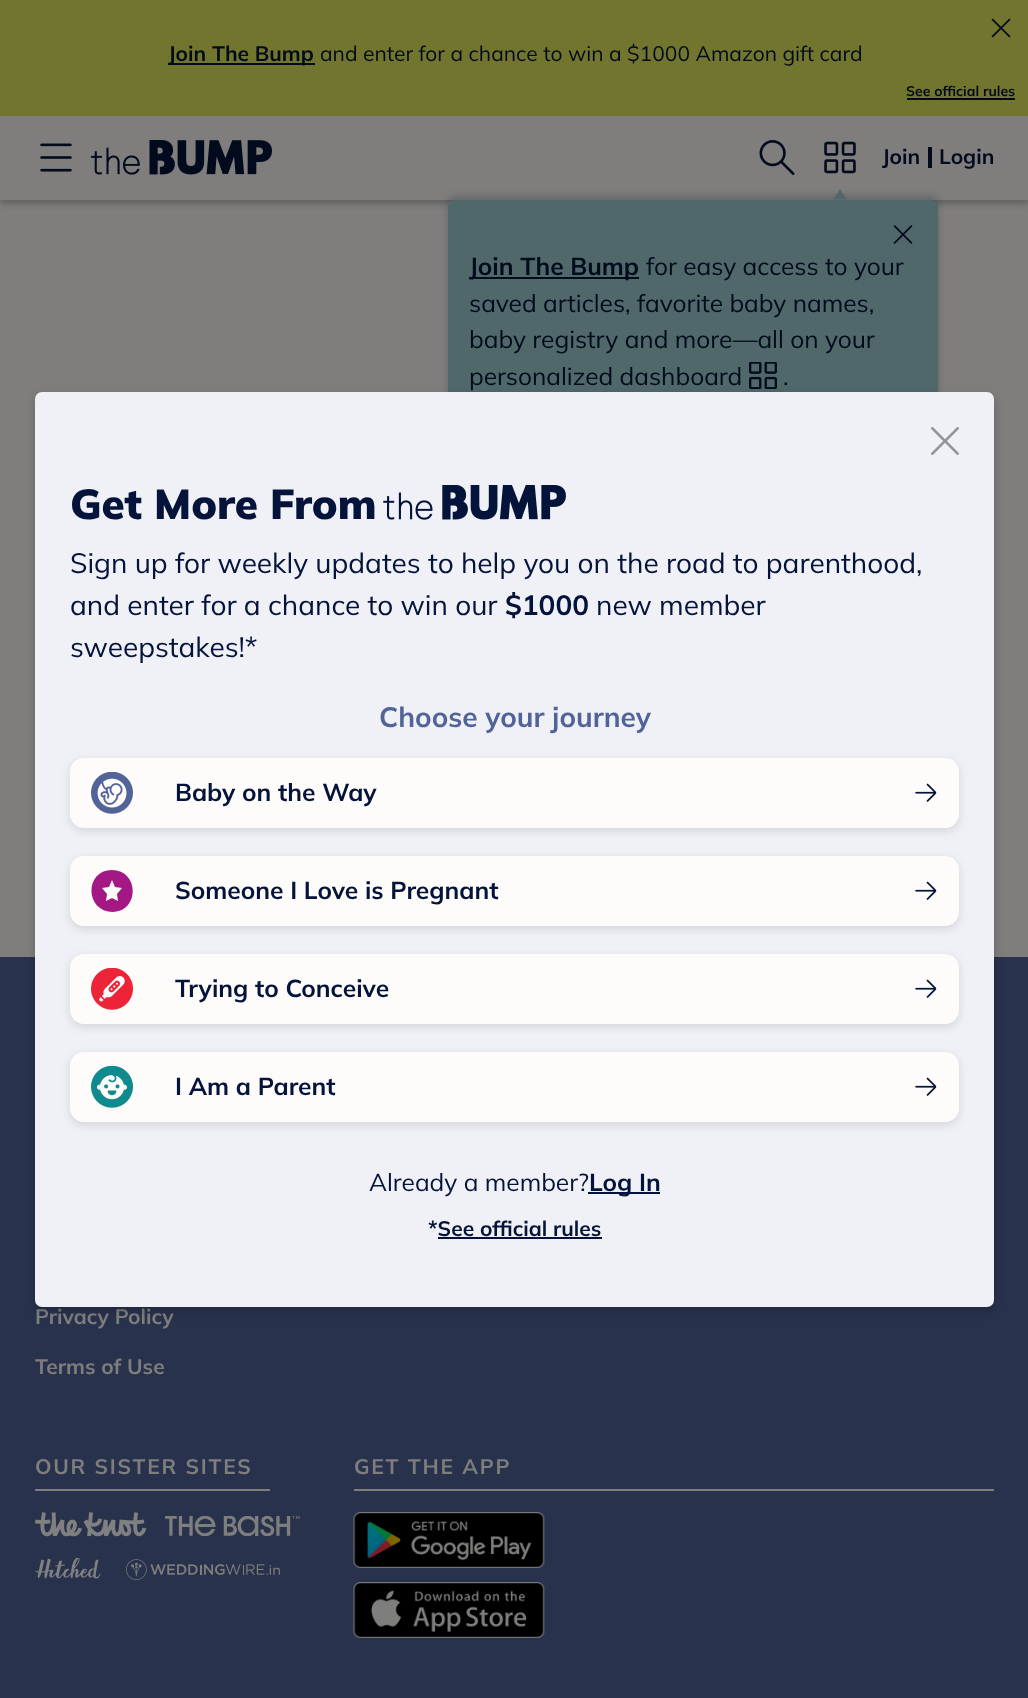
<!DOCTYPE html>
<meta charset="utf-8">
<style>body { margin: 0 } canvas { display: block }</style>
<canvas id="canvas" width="1028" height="1698"></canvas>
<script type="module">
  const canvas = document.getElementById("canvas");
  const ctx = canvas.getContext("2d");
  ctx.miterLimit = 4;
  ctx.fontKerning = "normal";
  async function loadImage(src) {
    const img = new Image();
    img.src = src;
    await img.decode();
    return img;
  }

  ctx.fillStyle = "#7f7e7d";
  ctx.fillRect(0, 0, 1028, 1698);
  ctx.fillStyle = "rgba(0, 0, 0, 0.08)";
  ctx.filter = "blur(3.5px)";
  ctx.beginPath();
  ctx.rect(0, 4, 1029, 199);
  ctx.fill();
  ctx.filter = "none";
  ctx.fillStyle = "rgba(0, 0, 0, 0.2)";
  ctx.filter = "blur(3.5px)";
  ctx.beginPath();
  ctx.rect(0, 119, 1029, 84);
  ctx.fill();
  ctx.filter = "none";
  ctx.fillStyle = "#72752e";
  ctx.fillRect(0, 0, 1028, 116);
  ctx.drawImage(await loadImage("img1.png"), 991, 18, 20, 20);
  ctx.fillStyle = "#020a1d";
  ctx.fillRect(168, 63, 147, 2);
  ctx.font = "200 21px Mulish";
  ctx.fillText("Join The Bump", 168, 61);
  ctx.font = "200 21px 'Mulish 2'";
  ctx.fillText("and enter for a chance to win a $1000 Amazon gift card", 320, 61);
  ctx.font = "200 14px Mulish";
  ctx.fillText("See official rules", 906, 96);
  ctx.fillRect(907, 98, 108, 2);
  ctx.fillStyle = "#7f7e7d";
  ctx.fillRect(0, 116, 1028, 84);
  ctx.drawImage(await loadImage("img2.png"), 40, 143, 32, 29);
  ctx.drawImage(await loadImage("img3.png"), 91, 140, 181, 35);
  ctx.drawImage(await loadImage("img4.png"), 759, 140, 36, 35);
  ctx.font = "200 21px Mulish";
  ctx.fillStyle = "#020a1d";
  ctx.fillText("Join", 882, 164);
  ctx.fillRect(928, 147, 4, 21);
  ctx.fillText("Login", 939, 164);
  ctx.drawImage(await loadImage("img5.png"), 824, 141, 32, 33);
  ctx.fillStyle = "rgba(2, 10, 29, 0.2)";
  ctx.filter = "blur(3.5px)";
  ctx.beginPath();
  ctx.roundRect(448, 196, 490, 217, 7);
  ctx.fill();
  ctx.filter = "none";
  ctx.fillStyle = "#50686a";
  ctx.beginPath();
  ctx.roundRect(448, 200, 490, 217, 7);
  ctx.fill();
  ctx.drawImage(await loadImage("img6.png"), 833, 189, 14, 11);
  ctx.drawImage(await loadImage("img7.png"), 893, 225, 20, 19);
  ctx.fillStyle = "#020a1d";
  ctx.fillRect(469, 277, 170, 2);
  ctx.font = "200 24.5px Mulish";
  ctx.fillText("Join The Bump", 469, 275);
  ctx.font = "200 24.5px 'Mulish 2'";
  ctx.fillText("for easy access to your", 646, 275);
  ctx.fillText("saved articles, favorite baby names,", 469, 312);
  ctx.fillText("baby registry and more—all on your", 469, 348);
  ctx.fillText("personalized dashboard", 469, 385);
  ctx.drawImage(await loadImage("img8.png"), 749, 362, 28, 27);
  ctx.fillText(".", 783, 385);
  ctx.fillStyle = "#29324d";
  ctx.fillRect(0, 957, 1028, 741);
  ctx.font = "200 21px Mulish";
  ctx.fillStyle = "#7f7e7d";
  ctx.fillText("Privacy Policy", 35, 1324);
  ctx.fillText("Terms of Use", 35, 1374);
  ctx.letterSpacing = "1.75px";
  ctx.fillText("OUR SISTER SITES", 35, 1474);
  ctx.fillRect(35, 1489, 235, 2);
  ctx.drawImage(await loadImage("img9.png"), 35, 1512, 112, 25);
  ctx.drawImage(await loadImage("img10.png"), 165, 1516, 135, 20);
  ctx.drawImage(await loadImage("img11.png"), 35, 1558, 66, 21);
  ctx.drawImage(await loadImage("img12.png"), 126, 1559, 154, 21);
  ctx.fillText("GET THE APP", 354, 1474);
  ctx.fillRect(354, 1489, 640, 2);
  ctx.drawImage(await loadImage("img13.png"), 353, 1512, 192, 56);
  ctx.drawImage(await loadImage("img14.png"), 353, 1582, 192, 56);
  ctx.fillStyle = "rgba(0, 0, 0, 0.2)";
  ctx.filter = "blur(5px)";
  ctx.beginPath();
  ctx.roundRect(35, 396, 959, 915, 7);
  ctx.fill();
  ctx.filter = "none";
  ctx.save();
  ctx.beginPath();
  ctx.roundRect(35, 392, 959, 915, 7);
  ctx.clip();
  ctx.filter = "blur(5px)";
  ctx.beginPath();
  ctx.roundRect(35, 396, 959, 915, 7);
  ctx.fill();
  ctx.filter = "none";
  ctx.restore();
  ctx.fillStyle = "#eff1f6";
  ctx.beginPath();
  ctx.roundRect(35, 392, 959, 915, 7);
  ctx.fill();
  ctx.drawImage(await loadImage("img15.png"), 931, 427, 28, 28);
  ctx.letterSpacing = "0px";
  ctx.font = "200 42px 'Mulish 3'";
  ctx.fillStyle = "#04133a";
  ctx.fillText("Get More From", 70, 519);
  ctx.drawImage(await loadImage("img16.png"), 383, 485, 183, 35);
  ctx.font = "200 28px 'Mulish 2'";
  ctx.fillText("Sign up for weekly updates to help you on the road to parenthood,", 70, 573);
  ctx.fillText("and enter for a chance to win our", 70, 615);
  ctx.font = "200 28px Mulish";
  ctx.fillText("$1000", 505, 615);
  ctx.font = "200 28px 'Mulish 2'";
  ctx.fillText("new member", 596, 615);
  ctx.fillText("sweepstakes!*", 70, 657);
  ctx.font = "200 28px Mulish";
  ctx.fillStyle = "#526399";
  ctx.fillText("Choose your journey", 379, 727);
  ctx.fillStyle = "rgba(102, 102, 102, 0.2)";
  ctx.filter = "blur(5px)";
  ctx.beginPath();
  ctx.roundRect(70, 761, 889, 70, 14);
  ctx.fill();
  ctx.filter = "none";
  ctx.fillStyle = "#fdfcfa";
  ctx.beginPath();
  ctx.roundRect(70, 758, 889, 70, 14);
  ctx.fill();
  ctx.drawImage(await loadImage("img17.png"), 91, 772, 42, 42);
  ctx.font = "200 24.5px Mulish";
  ctx.fillStyle = "#04133a";
  ctx.fillText("Baby on the Way", 175, 801);
  ctx.drawImage(await loadImage("img18.png"), 915, 783, 22, 19);
  ctx.fillStyle = "rgba(102, 102, 102, 0.2)";
  ctx.filter = "blur(5px)";
  ctx.beginPath();
  ctx.roundRect(70, 859, 889, 70, 14);
  ctx.fill();
  ctx.filter = "none";
  ctx.fillStyle = "#fdfcfa";
  ctx.beginPath();
  ctx.roundRect(70, 856, 889, 70, 14);
  ctx.fill();
  ctx.fillStyle = "#a31884";
  ctx.beginPath();
  ctx.moveTo(112, 870);
  ctx.bezierCurveTo(84, 870, 85, 912, 113, 912);
  ctx.bezierCurveTo(140, 911, 139, 870, 112, 870);
  ctx.closePath();
  ctx.moveTo(118, 901);
  ctx.lineTo(112, 898);
  ctx.lineTo(106, 901);
  ctx.lineTo(107, 894);
  ctx.lineTo(102, 888);
  ctx.lineTo(109, 887);
  ctx.lineTo(112, 880);
  ctx.lineTo(115, 887);
  ctx.lineTo(122, 888);
  ctx.lineTo(117, 894);
  ctx.closePath();
  ctx.fill();
  ctx.fillStyle = "#04133a";
  ctx.fillText("Someone I Love is Pregnant", 175, 899);
  ctx.drawImage(await loadImage("img18.png"), 915, 881, 22, 19);
  ctx.fillStyle = "rgba(102, 102, 102, 0.2)";
  ctx.filter = "blur(5px)";
  ctx.beginPath();
  ctx.roundRect(70, 957, 889, 70, 14);
  ctx.fill();
  ctx.filter = "none";
  ctx.fillStyle = "#fdfcfa";
  ctx.beginPath();
  ctx.roundRect(70, 954, 889, 70, 14);
  ctx.fill();
  ctx.drawImage(await loadImage("img19.png"), 91, 968, 42, 42);
  ctx.fillStyle = "#04133a";
  ctx.fillText("Trying to Conceive", 175, 997);
  ctx.drawImage(await loadImage("img18.png"), 915, 979, 22, 19);
  ctx.fillStyle = "rgba(102, 102, 102, 0.2)";
  ctx.filter = "blur(5px)";
  ctx.beginPath();
  ctx.roundRect(70, 1055, 889, 70, 14);
  ctx.fill();
  ctx.filter = "none";
  ctx.fillStyle = "#fdfcfa";
  ctx.beginPath();
  ctx.roundRect(70, 1052, 889, 70, 14);
  ctx.fill();
  ctx.drawImage(await loadImage("img20.png"), 91, 1066, 42, 42);
  ctx.fillStyle = "#04133a";
  ctx.fillText("I Am a Parent", 175, 1095);
  ctx.drawImage(await loadImage("img18.png"), 915, 1077, 22, 19);
  ctx.font = "200 24.5px 'Mulish 2'";
  ctx.fillText("Already a member?", 369, 1191);
  ctx.fillRect(588, 1192, 72, 2);
  ctx.font = "200 24.5px Mulish";
  ctx.fillText("Log In", 589, 1191);
  ctx.font = "200 21px Mulish";
  ctx.fillText("*See official rules", 428, 1236);
  ctx.fillRect(438, 1237, 164, 2);
</script>
